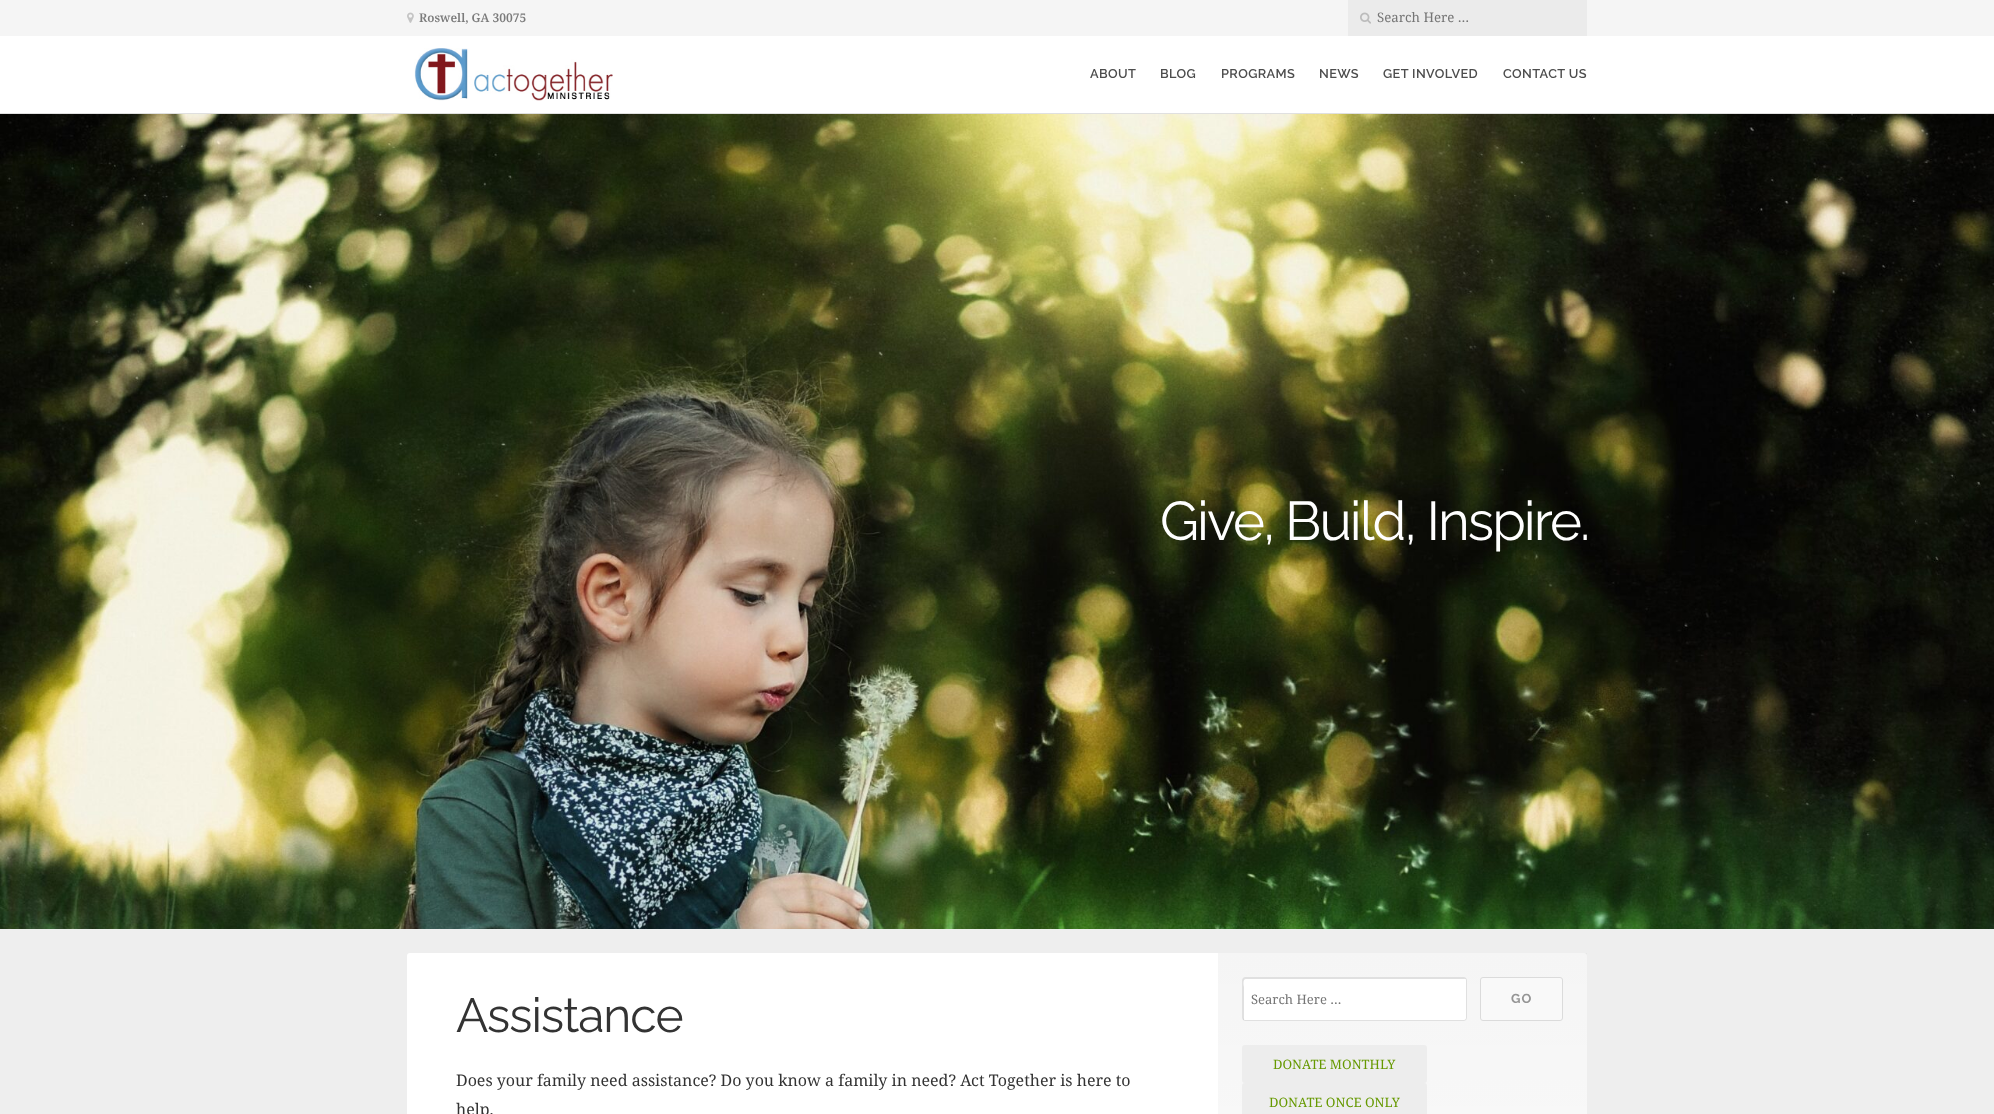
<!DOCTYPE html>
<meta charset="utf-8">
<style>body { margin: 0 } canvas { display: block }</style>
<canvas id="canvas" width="1994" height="1114"></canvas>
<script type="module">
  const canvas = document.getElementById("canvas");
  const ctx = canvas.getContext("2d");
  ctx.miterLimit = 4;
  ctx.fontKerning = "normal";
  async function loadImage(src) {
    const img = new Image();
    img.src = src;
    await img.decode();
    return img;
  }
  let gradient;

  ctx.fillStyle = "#eeeeee";
  ctx.fillRect(0, 0, 1994, 1114);
  ctx.fillStyle = "#ffffff";
  ctx.fillRect(0, 36, 1994, 77);
  ctx.fillStyle = "#e0e0e0";
  ctx.fillRect(0, 113, 1994, 1);
  ctx.fillStyle = "#f5f5f5";
  ctx.fillRect(0, 0, 1994, 36);
  ctx.drawImage(await loadImage("img1.png"), 407, 12, 7, 11);
  ctx.font = "600 12px Noto Serif";
  ctx.fillStyle = "#7b7b7b";
  ctx.fillText("Roswell, GA 30075", 419, 22);
  ctx.fillStyle = "#ebebeb";
  ctx.fillRect(1348, 0, 239, 36);
  ctx.drawImage(await loadImage("img2.png"), 1360, 12, 11, 12);
  ctx.font = "13.25px Noto Serif";
  ctx.fillStyle = "#757575";
  ctx.fillText("Search Here …", 1377, 22);
  ctx.drawImage(await loadImage("img3.png"), 414, 48, 199, 53);
  ctx.letterSpacing = "0.4px";
  ctx.font = "600 12.75px Raleway";
  ctx.fillStyle = "#4d4d4d";
  ctx.fillText("ABOUT", 1090, 78);
  ctx.fillText("BLOG", 1160, 78);
  ctx.fillText("PROGRAMS", 1221, 78);
  ctx.fillText("NEWS", 1319, 78);
  ctx.fillText("GET INVOLVED", 1383, 78);
  ctx.fillText("CONTACT US", 1503, 78);
  ctx.drawImage(await loadImage("img4.png"), 0, 114, 1994, 815);
  ctx.letterSpacing = "-2px";
  ctx.font = "54.5px Raleway";
  ctx.fillStyle = "#ffffff";
  ctx.fillText("Give, Build, Inspire.", 1160, 540);
  ctx.beginPath();
  ctx.roundRect(407, 953, 1180, 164, 3);
  ctx.fill();
  ctx.letterSpacing = "-1px";
  ctx.font = "48px Raleway";
  ctx.fillStyle = "#333333";
  ctx.fillText("Assistance", 456, 1032);
  ctx.letterSpacing = "0px";
  ctx.font = "16px Noto Serif";
  ctx.fillText("Does your family need assistance? Do you know a family in need? Act Together is here to", 456, 1086);
  ctx.fillText("help.", 456, 1115);
  gradient = ctx.createLinearGradient(1403, 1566, 1403, 953);
  gradient.addColorStop(0, "rgba(0, 0, 0, 0)");
  gradient.addColorStop(1, "rgba(0, 0, 0, 0.04)");
  ctx.fillStyle = gradient;
  ctx.fillRect(1218, 953, 369, 161);
  ctx.fillStyle = "#ffffff";
  ctx.beginPath();
  ctx.roundRect(1242, 977, 225, 44, 3);
  ctx.fill();
  ctx.fillStyle = "#e0e0e0";
  ctx.beginPath();
  ctx.moveTo(1246, 979);
  ctx.lineTo(1466, 979);
  ctx.lineTo(1464, 978);
  ctx.lineTo(1245, 978);
  ctx.bezierCurveTo(1244, 978, 1243, 979, 1243, 980);
  ctx.lineTo(1243, 1019);
  ctx.lineTo(1244, 1020);
  ctx.lineTo(1244, 987);
  ctx.bezierCurveTo(1244, 987, 1242, 979, 1246, 979);
  ctx.closePath();
  ctx.fill();
  ctx.beginPath();
  ctx.roundRect(1242.5, 977.5, 224, 43, 2.5);
  ctx.strokeStyle = "rgba(0, 0, 0, 0.12)";
  ctx.stroke();
  ctx.font = "13px Noto Serif";
  ctx.fillStyle = "#757575";
  ctx.fillText("Search Here …", 1251, 1004);
  ctx.fillStyle = "#f9f9f9";
  ctx.beginPath();
  ctx.roundRect(1480.5, 977.5, 82, 43, 2.5);
  ctx.fill();
  ctx.strokeStyle = "#dbdbdb";
  ctx.stroke();
  ctx.letterSpacing = "1px";
  ctx.font = "bold 13px Raleway";
  ctx.fillStyle = "#959595";
  ctx.fillText("GO", 1511, 1003);
  ctx.fillStyle = "#ededed";
  ctx.beginPath();
  ctx.roundRect(1242, 1045, 185, 38, 3);
  ctx.fill();
  ctx.letterSpacing = "0px";
  ctx.font = "13px Noto Serif";
  ctx.fillStyle = "#669900";
  ctx.fillText("DONATE MONTHLY", 1273, 1069);
  ctx.fillStyle = "#ededed";
  ctx.beginPath();
  ctx.roundRect(1242, 1083, 185, 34, 3);
  ctx.fill();
  ctx.fillStyle = "#669900";
  ctx.fillText("DONATE ONCE ONLY", 1269, 1107);
</script>
